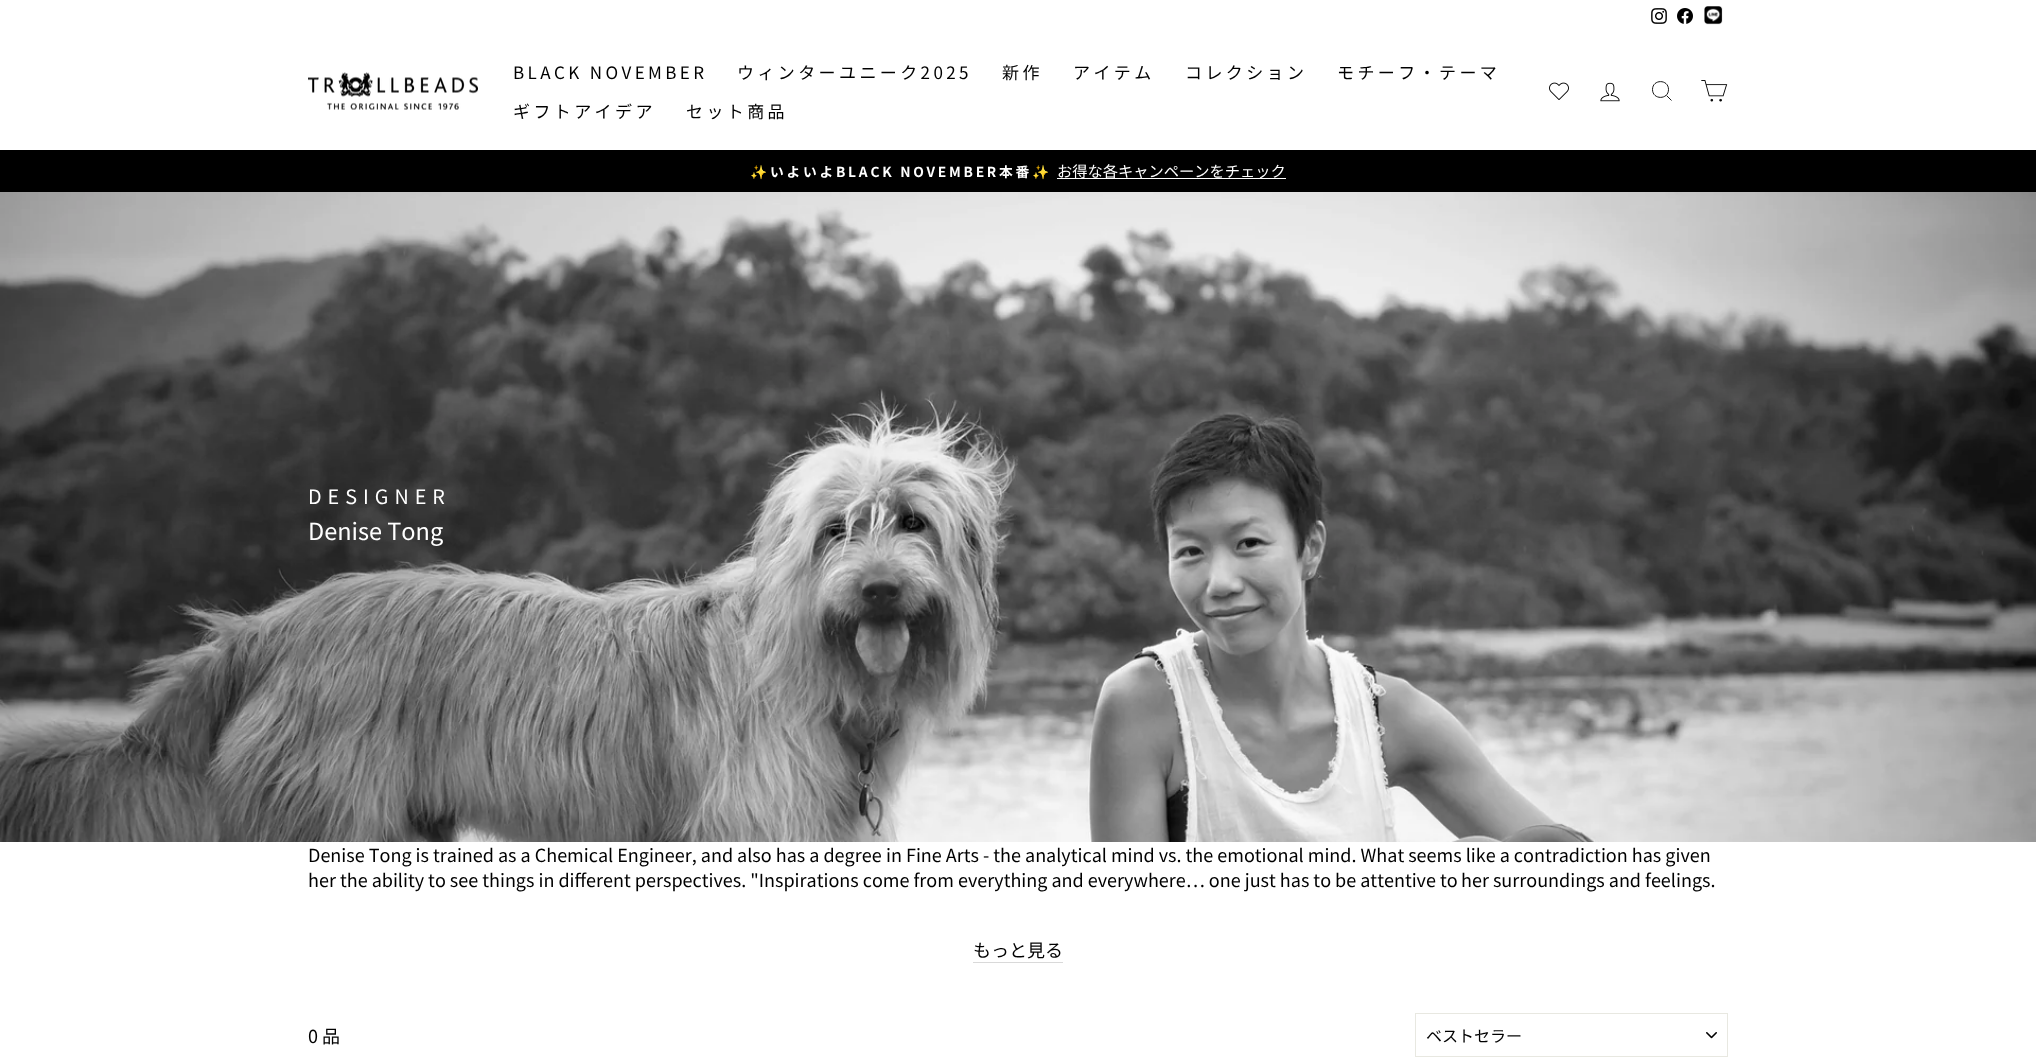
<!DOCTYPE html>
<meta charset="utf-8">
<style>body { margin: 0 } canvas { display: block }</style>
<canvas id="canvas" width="2036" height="1064"></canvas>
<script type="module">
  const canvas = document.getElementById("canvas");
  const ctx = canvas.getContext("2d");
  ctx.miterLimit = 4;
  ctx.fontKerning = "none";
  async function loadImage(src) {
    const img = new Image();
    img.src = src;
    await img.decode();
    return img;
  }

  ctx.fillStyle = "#ffffff";
  ctx.fillRect(0, 0, 2036, 1064);
  ctx.drawImage(await loadImage("img1.png"), 1651, 8, 16, 16);
  ctx.drawImage(await loadImage("img2.png"), 1677, 8, 16, 16);
  ctx.drawImage(await loadImage("img3.png"), 1704, 6, 19, 19);
  ctx.drawImage(await loadImage("img4.png"), 308, 72, 170, 38);
  ctx.letterSpacing = "3.4px";
  ctx.font = "17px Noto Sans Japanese";
  ctx.fillStyle = "#000000";
  ctx.fillText("BLACK NOVEMBER", 513, 79);
  ctx.fillText("ウィンターユニーク2025", 737, 79);
  ctx.fillText("新作", 1002, 79);
  ctx.fillText("アイテム", 1073, 79);
  ctx.fillText("コレクション", 1185, 79);
  ctx.fillText("モチーフ・テーマ", 1337, 79);
  ctx.fillText("ギフトアイデア", 513, 118);
  ctx.fillText("セット商品", 686, 118);
  ctx.drawImage(await loadImage("img5.png"), 1549, 82, 20, 18);
  ctx.drawImage(await loadImage("img6.png"), 1600, 82, 20, 20);
  ctx.beginPath();
  ctx.moveTo(1668.5, 89.5);
  ctx.bezierCurveTo(1668.5, 100, 1652.5, 100, 1652.5, 89.5);
  ctx.bezierCurveTo(1652.5, 79, 1668.5, 79, 1668.5, 89.5);
  ctx.closePath();
  ctx.moveTo(1671.5, 100.5);
  ctx.lineTo(1666.5, 95.5);
  ctx.strokeStyle = "#000000";
  ctx.lineWidth = 0.9;
  ctx.stroke();
  ctx.drawImage(await loadImage("img7.png"), 1701, 80, 27, 22);
  ctx.fillRect(0, 150, 2036, 42);
  ctx.letterSpacing = "2.75px";
  ctx.font = "bold 13.75px Noto Color Emoji";
  ctx.fillStyle = "#ffffff";
  ctx.fillText("✨", 750, 177);
  ctx.font = "bold 13.75px Noto Sans Japanese";
  ctx.fillText("いよいよBLACK NOVEMBER本番", 770, 177);
  ctx.font = "bold 13.75px Noto Color Emoji";
  ctx.fillText("✨", 1032, 177);
  ctx.fillRect(1057, 178, 229, 1);
  ctx.letterSpacing = "0px";
  ctx.font = "15.25px Noto Sans Japanese";
  ctx.fillText("お得な各キャンペーンをチェック", 1057, 177);
  ctx.drawImage(await loadImage("img8.png"), 0, 192, 2036, 650);
  ctx.letterSpacing = "6px";
  ctx.font = "19.75px Noto Sans Japanese";
  ctx.fillText("DESIGNER", 308, 504);
  ctx.letterSpacing = "0px";
  ctx.font = "23.5px Noto Sans Japanese";
  ctx.fillText("Denise Tong", 308, 540);
  ctx.font = "18px Noto Sans Japanese";
  ctx.fillStyle = "#000000";
  ctx.fillText("Denise Tong is trained as a Chemical Engineer, and also has a degree", 308, 862);
  ctx.fillText("in Fine Arts - the analytical mind vs. the emotional mind. What seems like a contradiction has given", 886, 862);
  ctx.fillText("her the ability to see things in different perspectives. \"Inspirations come from everything and everywhere… one just has to be attentive to", 308, 887);
  ctx.fillText("her surroundings and feelings.", 1461, 887);
  ctx.fillStyle = "#d9d9d9";
  ctx.fillRect(973, 962, 90, 1);
  ctx.fillStyle = "#000000";
  ctx.fillText("もっと見る", 973, 957);
  ctx.fillText("0 品", 308, 1043);
  ctx.drawImage(await loadImage("img9.png"), 1706, 1032, 11, 7);
  ctx.strokeStyle = "#e8e8e1";
  ctx.lineWidth = 1;
  ctx.strokeRect(1415.5, 1013.5, 312, 43);
  ctx.font = "16px Noto Sans Japanese";
  ctx.fillText("ベストセラー", 1426, 1042);
</script>
